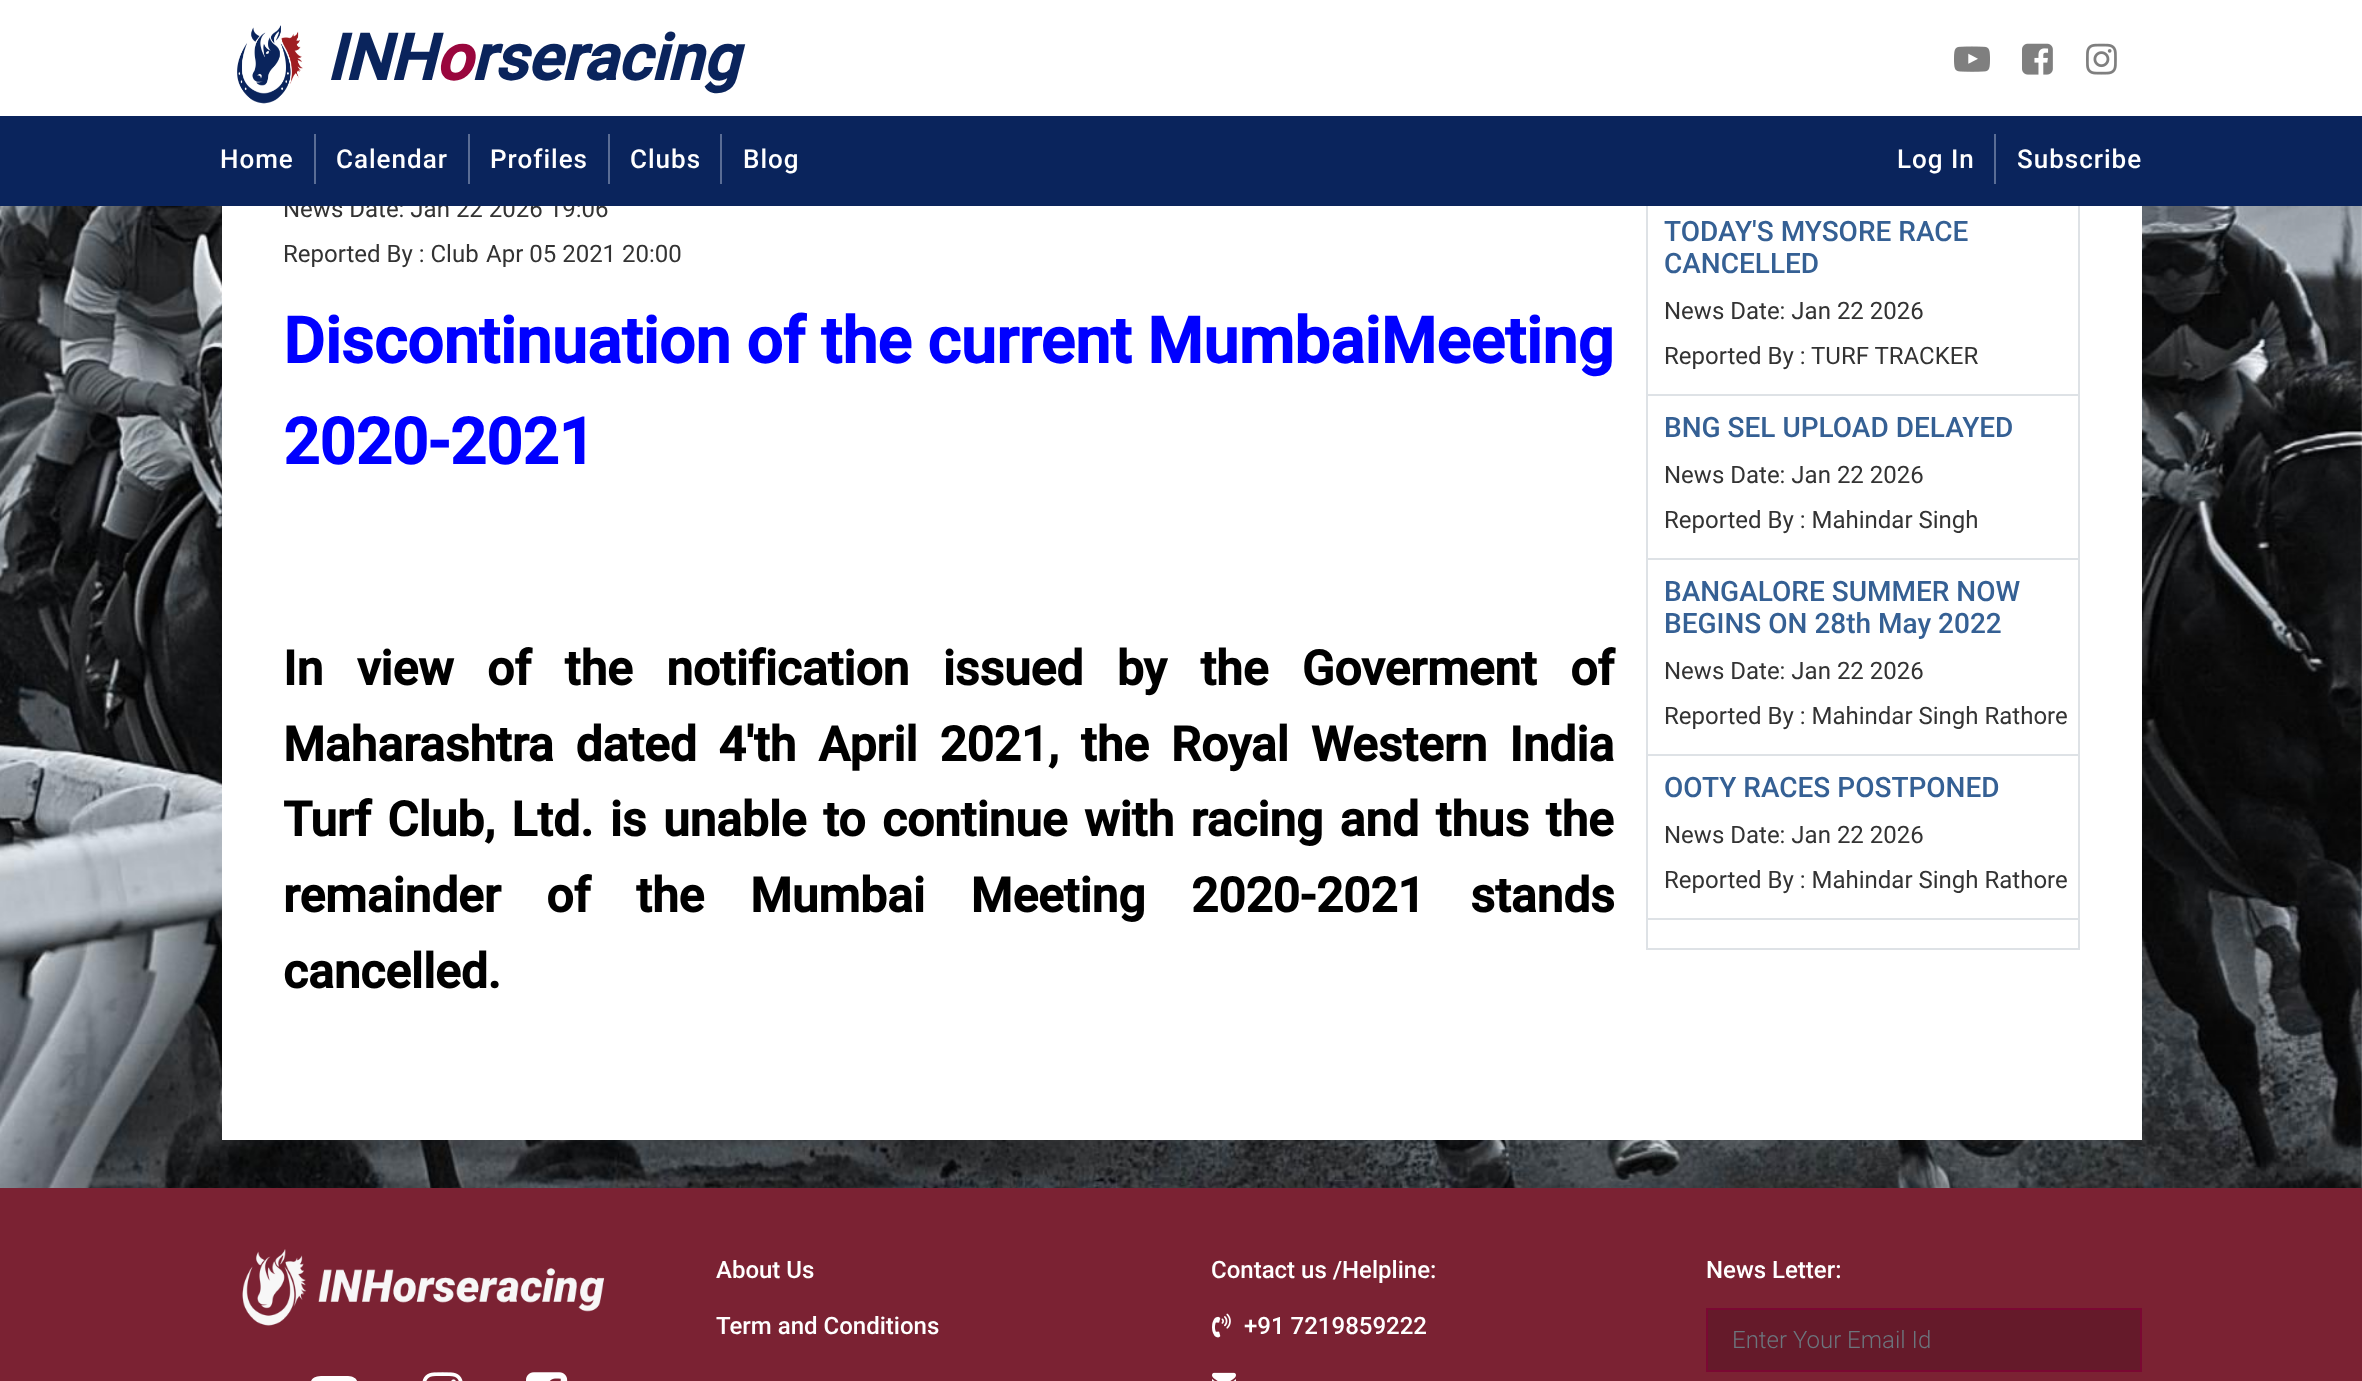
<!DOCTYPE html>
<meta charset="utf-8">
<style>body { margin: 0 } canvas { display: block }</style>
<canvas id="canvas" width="2362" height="1381"></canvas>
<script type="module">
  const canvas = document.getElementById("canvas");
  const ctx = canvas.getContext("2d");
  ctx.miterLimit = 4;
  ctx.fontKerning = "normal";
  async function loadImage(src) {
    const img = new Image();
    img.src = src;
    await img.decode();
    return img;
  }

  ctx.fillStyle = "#ffffff";
  ctx.fillRect(0, 0, 2362, 1381);
  ctx.drawImage(await loadImage("img1.png"), 0, 206, 2362, 982);
  ctx.fillRect(222, 206, 1920, 934);
  ctx.strokeStyle = "#dee2e6";
  ctx.lineWidth = 2;
  ctx.strokeRect(1647, -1, 432, 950);
  ctx.fillRect(1646, 0, 434, 116);
  ctx.drawImage(await loadImage("img2.png"), 237, 25, 66, 79);
  ctx.font = "italic bold 64px Roboto";
  ctx.fillStyle = "#0a245c";
  ctx.fillText("INH", 326, 80);
  ctx.fillStyle = "#9a063d";
  ctx.fillText("o", 435, 80);
  ctx.fillStyle = "#0a245c";
  ctx.fillText("rseracing", 471, 80);
  ctx.drawImage(await loadImage("img3.png"), 1954, 46, 36, 26);
  ctx.drawImage(await loadImage("img4.png"), 2022, 43, 31, 32);
  ctx.drawImage(await loadImage("img5.png"), 2086, 43, 31, 32);
  ctx.font = "24px Roboto";
  ctx.fillStyle = "#333333";
  ctx.fillText("News Date: Jan 22 2026 19:06", 283, 217);
  ctx.fillStyle = "#0a245c";
  ctx.fillRect(0, 116, 2362, 90);
  ctx.fillStyle = "#5a6d95";
  ctx.fillRect(314, 134, 2, 50);
  ctx.letterSpacing = "1px";
  ctx.font = "500 26px Roboto";
  ctx.fillStyle = "#ffffff";
  ctx.fillText("Home", 220, 168);
  ctx.fillStyle = "#5a6d95";
  ctx.fillRect(468, 134, 2, 50);
  ctx.fillStyle = "#ffffff";
  ctx.fillText("Calendar", 336, 168);
  ctx.fillStyle = "#5a6d95";
  ctx.fillRect(608, 134, 2, 50);
  ctx.fillStyle = "#ffffff";
  ctx.fillText("Profiles", 490, 168);
  ctx.fillStyle = "#5a6d95";
  ctx.fillRect(720, 134, 2, 50);
  ctx.fillStyle = "#ffffff";
  ctx.fillText("Clubs", 630, 168);
  ctx.fillText("Blog", 743, 168);
  ctx.fillStyle = "#5a6d95";
  ctx.fillRect(1994, 134, 2, 50);
  ctx.fillStyle = "#ffffff";
  ctx.fillText("Log In", 1897, 168);
  ctx.fillText("Subscribe", 2017, 168);
  ctx.letterSpacing = "0px";
  ctx.font = "24px Roboto";
  ctx.fillStyle = "#333333";
  ctx.fillText("Reported By : Club", 283, 262);
  ctx.fillText("Apr 05 2021 20:00", 486, 262);
  ctx.letterSpacing = "-0.12px";
  ctx.font = "bold 64px Roboto";
  ctx.fillStyle = "#0000ff";
  ctx.fillText("Discontinuation of the current MumbaiMeeting", 283, 363);
  ctx.fillText("2020-2021", 283, 464);
  ctx.wordSpacing = "21.75px";
  ctx.font = "bold 48px Roboto";
  ctx.fillStyle = "#000000";
  ctx.fillText("In view of the notification issued by the Goverment of", 283, 685);
  ctx.wordSpacing = "10.25px";
  ctx.fillText("Maharashtra dated 4'th April 2021, the Royal Western India", 283, 761);
  ctx.wordSpacing = "4.75px";
  ctx.fillText("Turf Club, Ltd. is unable to continue with racing and thus the", 283, 836);
  ctx.wordSpacing = "34px";
  ctx.fillText("remainder of the Mumbai Meeting 2020-2021 stands", 283, 912);
  ctx.wordSpacing = "0px";
  ctx.fillText("cancelled.", 283, 988);
  ctx.fillStyle = "#dee2e6";
  ctx.fillRect(1648, 394, 430, 2);
  ctx.letterSpacing = "0px";
  ctx.font = "500 28px Roboto";
  ctx.fillStyle = "#356094";
  ctx.fillText("TODAY'S MYSORE RACE", 1664, 241);
  ctx.fillText("CANCELLED", 1664, 273);
  ctx.font = "24px Roboto";
  ctx.fillStyle = "#333333";
  ctx.fillText("News Date: Jan 22 2026", 1664, 319);
  ctx.fillText("Reported By : TURF TRACKER", 1664, 364);
  ctx.fillStyle = "#dee2e6";
  ctx.fillRect(1648, 558, 430, 2);
  ctx.font = "500 28px Roboto";
  ctx.fillStyle = "#356094";
  ctx.fillText("BNG SEL UPLOAD DELAYED", 1664, 437);
  ctx.font = "24px Roboto";
  ctx.fillStyle = "#333333";
  ctx.fillText("News Date: Jan 22 2026", 1664, 483);
  ctx.fillText("Reported By : Mahindar Singh", 1664, 528);
  ctx.fillStyle = "#dee2e6";
  ctx.fillRect(1648, 754, 430, 2);
  ctx.font = "500 28px Roboto";
  ctx.fillStyle = "#356094";
  ctx.fillText("BANGALORE SUMMER NOW", 1664, 601);
  ctx.fillText("BEGINS ON 28th May 2022", 1664, 633);
  ctx.font = "24px Roboto";
  ctx.fillStyle = "#333333";
  ctx.fillText("News Date: Jan 22 2026", 1664, 679);
  ctx.fillText("Reported By : Mahindar Singh Rathore", 1664, 724);
  ctx.fillStyle = "#dee2e6";
  ctx.fillRect(1648, 918, 430, 2);
  ctx.font = "500 28px Roboto";
  ctx.fillStyle = "#356094";
  ctx.fillText("OOTY RACES POSTPONED", 1664, 797);
  ctx.font = "24px Roboto";
  ctx.fillStyle = "#333333";
  ctx.fillText("News Date: Jan 22 2026", 1664, 843);
  ctx.fillText("Reported By : Mahindar Singh Rathore", 1664, 888);
  ctx.fillStyle = "#7b2233";
  ctx.fillRect(0, 1188, 2362, 193);
  ctx.drawImage(await loadImage("img6.png"), 242, 1249, 363, 77);
  ctx.fillStyle = "#ffffff";
  ctx.beginPath();
  ctx.moveTo(329, 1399);
  ctx.lineTo(342, 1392);
  ctx.lineTo(329, 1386);
  ctx.closePath();
  ctx.moveTo(334, 1376);
  ctx.lineTo(348, 1376);
  ctx.bezierCurveTo(359, 1377, 358, 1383, 358, 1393);
  ctx.bezierCurveTo(358, 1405, 358, 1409, 347, 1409);
  ctx.lineTo(320, 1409);
  ctx.bezierCurveTo(309, 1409, 310, 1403, 310, 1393);
  ctx.bezierCurveTo(310, 1381, 310, 1377, 321, 1376);
  ctx.closePath();
  ctx.fill();
  ctx.drawImage(await loadImage("img7.png"), 422, 1372, 41, 9);
  ctx.drawImage(await loadImage("img8.png"), 526, 1372, 42, 9);
  ctx.font = "500 24px Roboto";
  ctx.fillText("About Us", 716, 1278);
  ctx.fillText("Term and Conditions", 716, 1334);
  ctx.fillText("Contact us /Helpline:", 1211, 1278);
  ctx.drawImage(await loadImage("img9.png"), 1212, 1313, 19, 25);
  ctx.fillText("+91 7219859222", 1244, 1334);
  ctx.drawImage(await loadImage("img10.png"), 1212, 1372, 24, 9);
  ctx.fillText("News Letter:", 1706, 1278);
  ctx.fillStyle = "#651a2a";
  ctx.beginPath();
  ctx.rect(1707, 1309, 434, 62);
  ctx.fill();
  ctx.strokeStyle = "#7b0833";
  ctx.stroke();
  ctx.font = "300 24px Roboto";
  ctx.fillStyle = "#6c757d";
  ctx.fillText("Enter Your Email Id", 1732, 1348);
</script>
